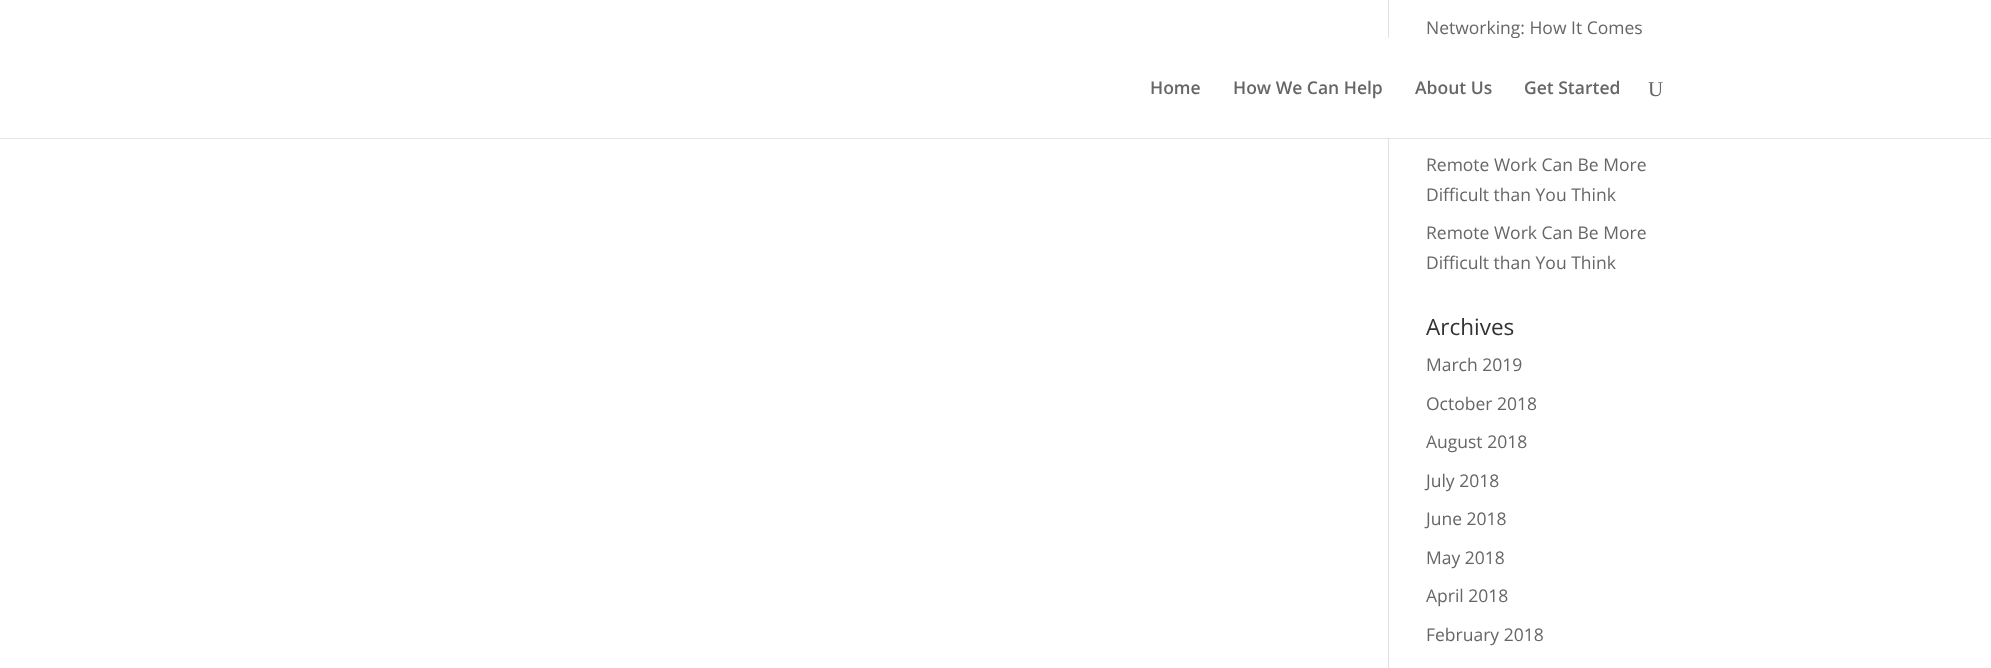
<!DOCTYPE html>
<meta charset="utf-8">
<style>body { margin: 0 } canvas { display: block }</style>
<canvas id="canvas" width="1991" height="668"></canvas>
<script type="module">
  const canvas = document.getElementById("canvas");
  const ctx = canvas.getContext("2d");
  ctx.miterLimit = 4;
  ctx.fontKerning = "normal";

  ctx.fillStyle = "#ffffff";
  ctx.fillRect(0, 0, 1991, 668);
  ctx.fillStyle = "#e6e6e6";
  ctx.fillRect(0, 138, 1991, 1);
  ctx.fillStyle = "#e2e2e2";
  ctx.fillRect(1388, 0, 1, 668);
  ctx.fillStyle = "#cbcbcb";
  ctx.fillRect(1388, 138, 1, 1);
  ctx.font = "17.5px Open Sans";
  ctx.fillStyle = "#666666";
  ctx.fillText("Networking: How It Comes", 1426, 34);
  ctx.fillText("Remote Work Can Be More", 1426, 171);
  ctx.fillText("Difficult than You Think", 1426, 201);
  ctx.fillText("Remote Work Can Be More", 1426, 239);
  ctx.fillText("Difficult than You Think", 1426, 269);
  ctx.font = "22.5px Open Sans";
  ctx.fillStyle = "#333333";
  ctx.fillText("Archives", 1426, 335);
  ctx.font = "17.5px Open Sans";
  ctx.fillStyle = "#666666";
  ctx.fillText("March 2019", 1426, 371);
  ctx.fillText("October 2018", 1426, 410);
  ctx.fillText("August 2018", 1426, 448);
  ctx.fillText("July 2018", 1426, 487);
  ctx.fillText("June 2018", 1426, 525);
  ctx.fillText("May 2018", 1426, 564);
  ctx.fillText("April 2018", 1426, 602);
  ctx.fillText("February 2018", 1426, 641);
  ctx.fillStyle = "#ffffff";
  ctx.fillRect(1388, 38, 129, 100);
  ctx.font = "600 17.5px Open Sans";
  ctx.fillStyle = "#666666";
  ctx.fillText("Home", 1150, 94);
  ctx.fillText("How We Can Help", 1233, 94);
  ctx.fillText("About Us", 1415, 94);
  ctx.fillText("Get Started", 1524, 94);
  ctx.font = "21px Liberation Serif";
  ctx.fillText("U", 1648, 96);
</script>
